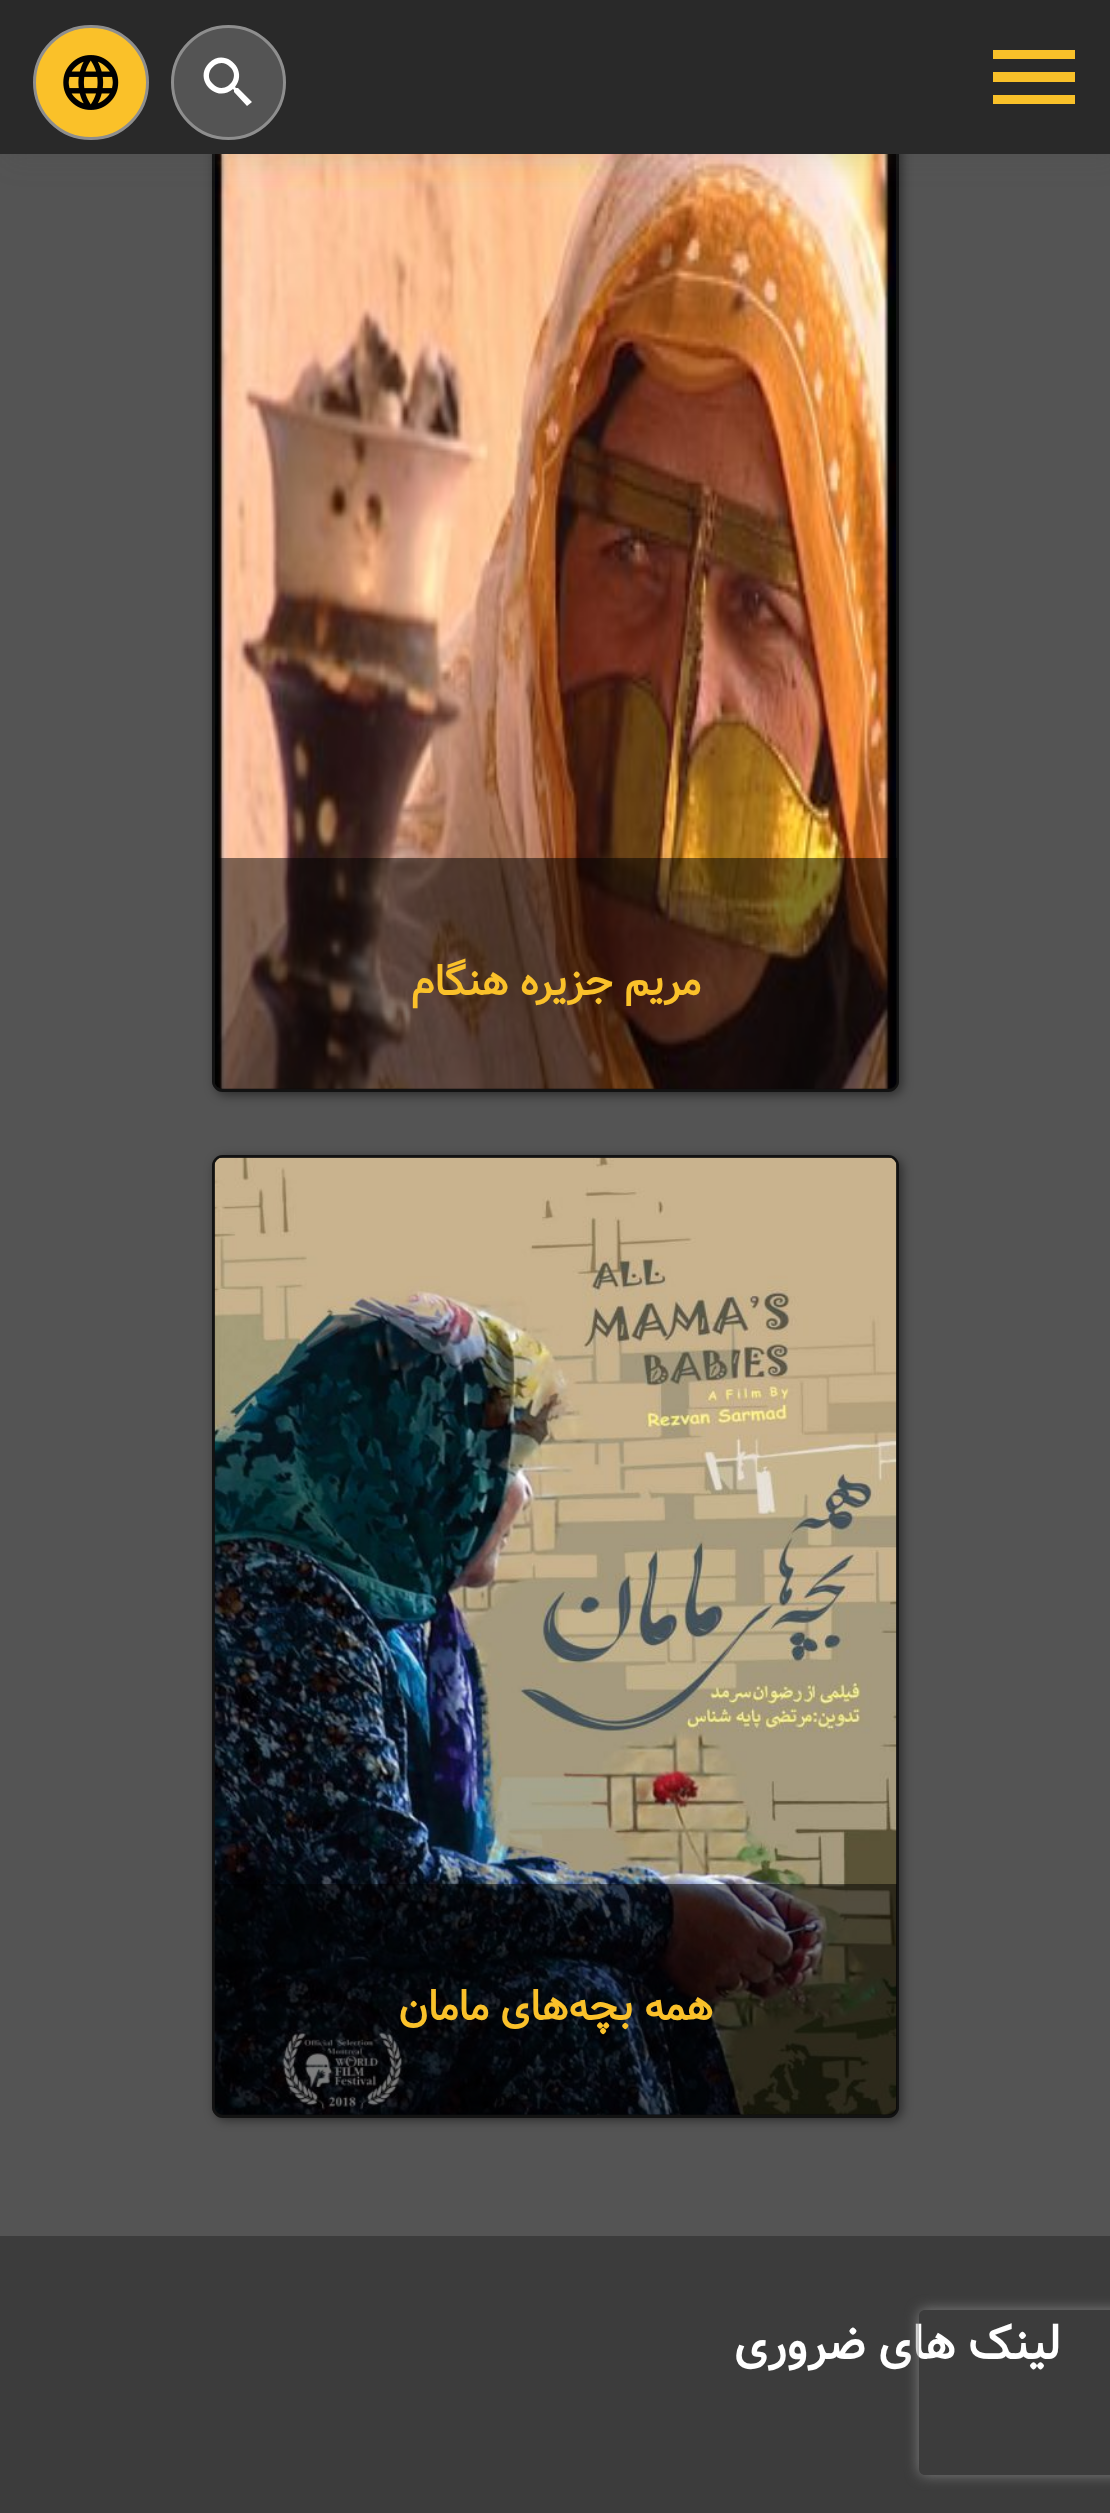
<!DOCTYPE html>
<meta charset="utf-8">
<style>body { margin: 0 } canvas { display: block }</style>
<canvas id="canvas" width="1110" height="2513"></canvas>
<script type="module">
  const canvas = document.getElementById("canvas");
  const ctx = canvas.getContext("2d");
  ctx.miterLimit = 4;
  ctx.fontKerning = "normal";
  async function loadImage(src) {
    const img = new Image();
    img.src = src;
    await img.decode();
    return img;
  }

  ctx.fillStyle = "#545454";
  ctx.fillRect(0, 0, 1110, 2513);
  ctx.fillStyle = "rgba(0, 0, 0, 0.48)";
  ctx.filter = "blur(5.5px)";
  ctx.beginPath();
  ctx.roundRect(215, 132, 687, 963, 11);
  ctx.fill();
  ctx.filter = "none";
  ctx.fillStyle = "#171717";
  ctx.beginPath();
  ctx.roundRect(212, 129, 687, 963, 11);
  ctx.fill();
  ctx.beginPath();
  ctx.roundRect(213.5, 130.5, 684, 960, 9.5);
  ctx.strokeStyle = "rgba(14, 14, 14, 0.46)";
  ctx.lineWidth = 3;
  ctx.stroke();
  ctx.drawImage(await loadImage("img2.png"), 215, 154, 681, 935);
  ctx.fillStyle = "rgba(76, 76, 76, 0.12)";
  ctx.filter = "blur(14px)";
  ctx.beginPath();
  ctx.rect(6, 6, 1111, 154);
  ctx.fill();
  ctx.filter = "none";
  ctx.fillStyle = "#292929";
  ctx.fillRect(0, 0, 1110, 154);
  ctx.fillStyle = "#f8c029";
  ctx.beginPath();
  ctx.moveTo(993, 50);
  ctx.lineTo(1075, 50);
  ctx.lineTo(1075, 59);
  ctx.lineTo(993, 59);
  ctx.closePath();
  ctx.moveTo(993, 82);
  ctx.lineTo(993, 72);
  ctx.lineTo(1075, 72);
  ctx.lineTo(1075, 82);
  ctx.closePath();
  ctx.moveTo(993, 104);
  ctx.lineTo(993, 95);
  ctx.lineTo(1075, 95);
  ctx.lineTo(1075, 104);
  ctx.closePath();
  ctx.fill();
  ctx.fillStyle = "#545454";
  ctx.beginPath();
  ctx.arc(228.5, 82.5, 56, 0, Math.PI * 2);
  ctx.fill();
  ctx.strokeStyle = "#8e8e8e";
  ctx.stroke();
  ctx.fillStyle = "#ffffff";
  ctx.beginPath();
  ctx.moveTo(213, 84);
  ctx.bezierCurveTo(224, 96, 242, 78, 230, 67);
  ctx.bezierCurveTo(219, 55, 201, 73, 213, 84);
  ctx.closePath();
  ctx.moveTo(238, 88);
  ctx.lineTo(252, 102);
  ctx.lineTo(247, 106);
  ctx.lineTo(234, 92);
  ctx.lineTo(234, 90);
  ctx.lineTo(233, 89);
  ctx.bezierCurveTo(216, 104, 193, 79, 209, 63);
  ctx.bezierCurveTo(225, 47, 249, 70, 235, 87);
  ctx.lineTo(236, 88);
  ctx.closePath();
  ctx.fill();
  ctx.fillStyle = "#fac129";
  ctx.beginPath();
  ctx.roundRect(34.5, 26.5, 113, 112, 56);
  ctx.fill();
  ctx.stroke();
  ctx.drawImage(await loadImage("img1.png"), 63, 55, 56, 55);
  ctx.fillStyle = "rgba(0, 0, 0, 0.5)";
  ctx.beginPath();
  ctx.roundRect(215, 858, 682, 231, [0, 0, 8, 8]);
  ctx.fill();
  ctx.direction = "rtl";
  ctx.font = "bold 41.25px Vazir";
  ctx.fillStyle = "#fac12a";
  ctx.fillText("مریم جزیره هنگام", 701, 995);
  ctx.fillStyle = "rgba(0, 0, 0, 0.48)";
  ctx.filter = "blur(5.5px)";
  ctx.beginPath();
  ctx.roundRect(215, 1158, 687, 962, 11);
  ctx.fill();
  ctx.filter = "none";
  ctx.fillStyle = "#171717";
  ctx.beginPath();
  ctx.roundRect(212, 1155, 687, 963, 11);
  ctx.fill();
  ctx.beginPath();
  ctx.roundRect(213.5, 1156.5, 684, 960, 9.5);
  ctx.strokeStyle = "rgba(14, 14, 14, 0.46)";
  ctx.stroke();
  ctx.drawImage(await loadImage("img3.png"), 214, 1157, 683, 958);
  ctx.fillStyle = "rgba(0, 0, 0, 0.5)";
  ctx.beginPath();
  ctx.roundRect(215, 1884, 682, 231, [0, 0, 8, 8]);
  ctx.fill();
  ctx.fillStyle = "#fac12a";
  ctx.fillText("همه بچه‌های مامان", 713, 2020);
  ctx.fillStyle = "#3c3c3c";
  ctx.fillRect(0, 2236, 1110, 277);
  ctx.font = "bold 46.75px Vazir";
  ctx.fillStyle = "#ffffff";
  ctx.fillText("لینک های ضروری", 1060, 2359);
  ctx.save();
  ctx.beginPath();
  ctx.moveTo(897, 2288);
  ctx.lineTo(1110, 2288);
  ctx.lineTo(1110, 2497);
  ctx.lineTo(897, 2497);
  ctx.closePath();
  ctx.moveTo(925, 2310);
  ctx.lineTo(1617, 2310);
  ctx.bezierCurveTo(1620.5, 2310, 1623, 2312.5, 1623, 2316);
  ctx.lineTo(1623, 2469);
  ctx.bezierCurveTo(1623, 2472.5, 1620.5, 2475, 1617, 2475);
  ctx.lineTo(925, 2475);
  ctx.bezierCurveTo(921.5, 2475, 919, 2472.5, 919, 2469);
  ctx.lineTo(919, 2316);
  ctx.bezierCurveTo(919, 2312.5, 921.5, 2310, 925, 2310);
  ctx.closePath();
  ctx.clip("evenodd");
  ctx.fillStyle = "#808080";
  ctx.filter = "blur(7px)";
  ctx.beginPath();
  ctx.roundRect(919, 2310, 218, 165, 6);
  ctx.fill();
  ctx.filter = "none";
  ctx.restore();
</script>
